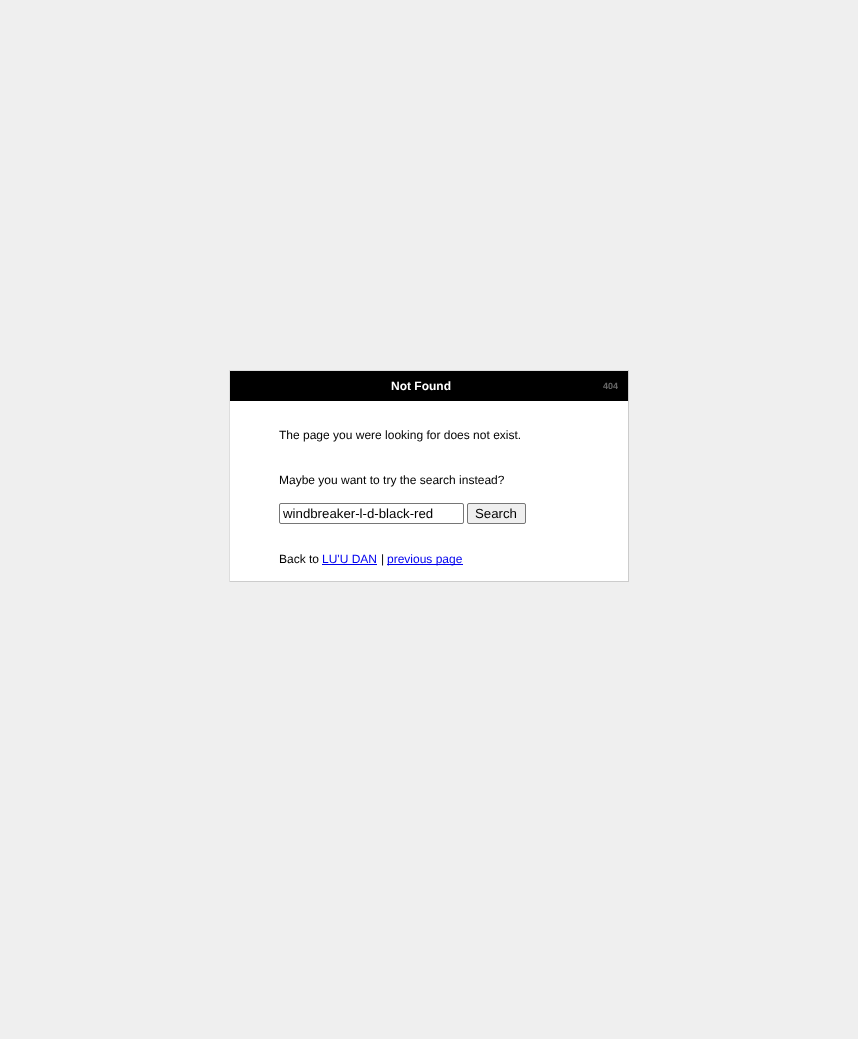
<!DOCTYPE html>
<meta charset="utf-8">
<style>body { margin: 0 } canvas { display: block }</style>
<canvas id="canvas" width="858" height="1039"></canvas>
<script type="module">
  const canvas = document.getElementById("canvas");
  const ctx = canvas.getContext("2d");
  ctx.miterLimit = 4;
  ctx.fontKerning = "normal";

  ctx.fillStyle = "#efefef";
  ctx.fillRect(0, 0, 858, 1039);
  ctx.fillStyle = "#ffffff";
  ctx.fillRect(230, 401, 398, 180);
  ctx.fillStyle = "#dddddd";
  ctx.fillRect(229, 370, 400, 1);
  ctx.fillStyle = "#cccccc";
  ctx.fillRect(628, 370, 1, 212);
  ctx.fillRect(229, 581, 400, 1);
  ctx.fillStyle = "#dddddd";
  ctx.fillRect(229, 370, 1, 212);
  ctx.fillStyle = "#000000";
  ctx.fillRect(230, 371, 398, 30);
  ctx.font = "bold 12px Liberation Sans";
  ctx.fillStyle = "#ffffff";
  ctx.fillText("Not Found", 391, 390);
  ctx.font = "bold 9px Liberation Sans";
  ctx.fillStyle = "#666666";
  ctx.fillText("404", 603, 389);
  ctx.font = "12px Liberation Sans";
  ctx.fillStyle = "#000000";
  ctx.fillText("The page you were looking for does not exist.", 279, 439);
  ctx.fillText("Maybe you want to try the search instead?", 279, 484);
  ctx.beginPath();
  ctx.roundRect(279.5, 503.5, 184, 20, 1.5);
  ctx.strokeStyle = "#767676";
  ctx.stroke();
  ctx.font = "13.25px Liberation Sans";
  ctx.fillText("windbreaker-l-d-black-red", 283, 518);
  ctx.fillStyle = "#efefef";
  ctx.beginPath();
  ctx.roundRect(467.5, 503.5, 58, 20, 1.5);
  ctx.fill();
  ctx.stroke();
  ctx.fillStyle = "#000000";
  ctx.fillText("Search", 475, 518);
  ctx.font = "12px Liberation Sans";
  ctx.fillText("Back to", 279, 563);
  ctx.fillStyle = "#0000ee";
  ctx.fillText("LU'U DAN", 322, 563);
  ctx.fillRect(322, 564, 55, 1);
  ctx.fillStyle = "#000000";
  ctx.fillText("|", 381, 563);
  ctx.fillStyle = "#0000ee";
  ctx.fillRect(387, 564, 76, 1);
  ctx.fillText("previous page", 387, 563);
</script>
